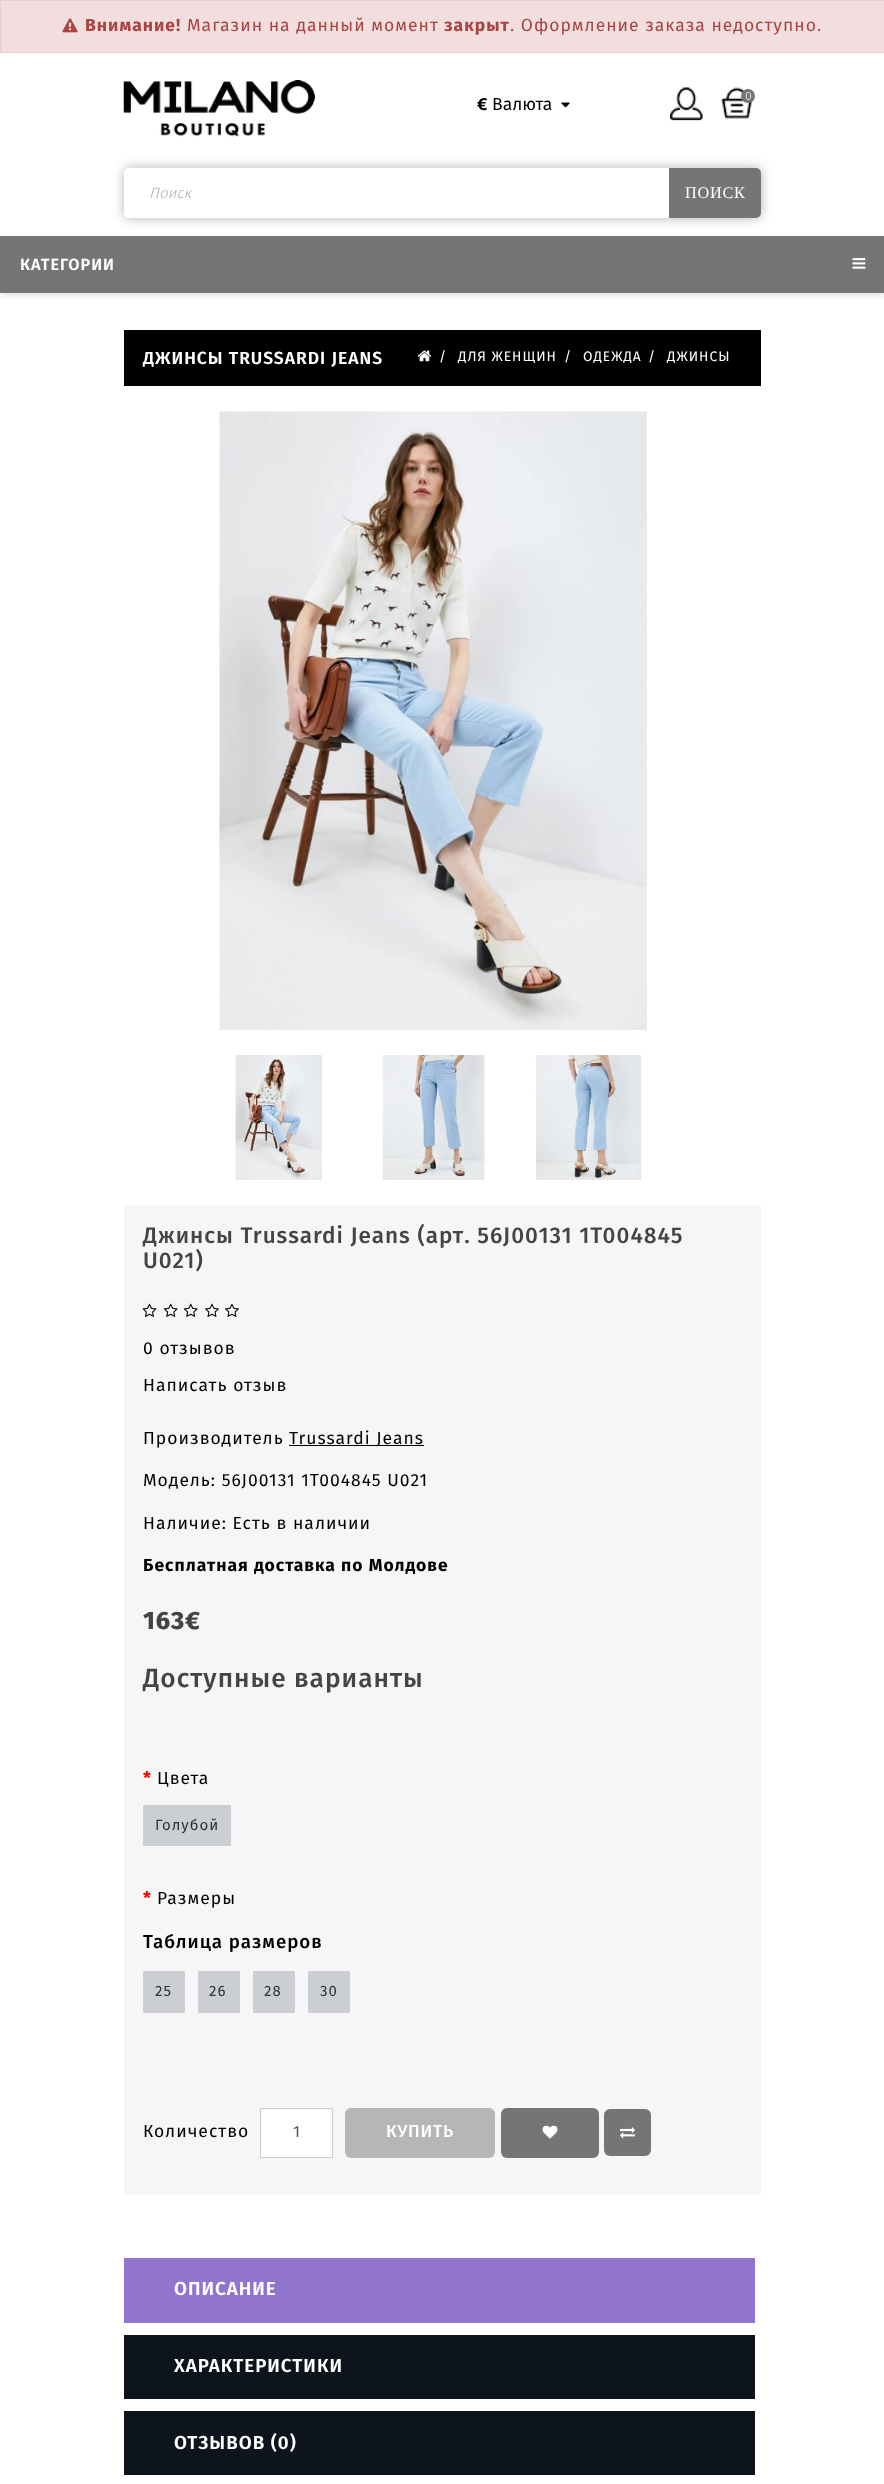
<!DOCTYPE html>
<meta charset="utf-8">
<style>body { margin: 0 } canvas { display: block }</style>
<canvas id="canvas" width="884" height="2484"></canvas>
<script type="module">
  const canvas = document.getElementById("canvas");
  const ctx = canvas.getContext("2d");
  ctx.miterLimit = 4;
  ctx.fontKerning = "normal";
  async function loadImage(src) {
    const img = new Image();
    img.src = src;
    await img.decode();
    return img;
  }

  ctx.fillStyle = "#ffffff";
  ctx.fillRect(0, 0, 884, 2484);
  ctx.fillStyle = "#f6f6f6";
  ctx.fillRect(124, 1205, 637, 990);
  ctx.save();
  ctx.beginPath();
  ctx.rect(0, 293, 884, 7);
  ctx.clip();
  ctx.fillStyle = "rgba(0, 0, 0, 0.14)";
  ctx.filter = "blur(4.5px)";
  ctx.beginPath();
  ctx.rect(1, 51, 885, 244);
  ctx.fill();
  ctx.filter = "none";
  ctx.restore();
  ctx.fillStyle = "#f2dede";
  ctx.beginPath();
  ctx.rect(0.5, 0.5, 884, 52);
  ctx.fill();
  ctx.strokeStyle = "#ebccd1";
  ctx.stroke();
  ctx.drawImage(await loadImage("img1.png"), 62, 18, 16, 15);
  ctx.letterSpacing = "1px";
  ctx.font = "bold 17.5px Fira Sans";
  ctx.fillStyle = "#a94442";
  ctx.fillText("Внимание!", 85, 31);
  ctx.font = "17.5px Fira Sans";
  ctx.fillText("Магазин на данный момент", 187, 31);
  ctx.font = "bold 17.5px Fira Sans";
  ctx.fillText("закрыт", 444, 31);
  ctx.font = "17.5px Fira Sans";
  ctx.fillText(". Оформление заказа недоступно.", 510, 31);
  ctx.font = "500 26.25px Fira Sans";
  ctx.fillStyle = "#444444";
  ctx.fillText("Доступные варианты", 143, 1687);
  ctx.font = "bold 17.5px Fira Sans";
  ctx.fillStyle = "#ff0000";
  ctx.fillText("*", 143, 1784);
  ctx.font = "17.5px Fira Sans";
  ctx.fillStyle = "#000000";
  ctx.fillText("Цвета", 157, 1784);
  ctx.fillStyle = "#cbcfd4";
  ctx.beginPath();
  ctx.roundRect(143, 1805, 88, 41, 1);
  ctx.fill();
  ctx.font = "15px Fira Sans";
  ctx.fillStyle = "#333333";
  ctx.fillText("Голубой", 155, 1830);
  ctx.font = "bold 17.5px Fira Sans";
  ctx.fillStyle = "#ff0000";
  ctx.fillText("*", 143, 1904);
  ctx.font = "17.5px Fira Sans";
  ctx.fillStyle = "#000000";
  ctx.fillText("Размеры", 157, 1904);
  ctx.font = "500 18.75px Fira Sans";
  ctx.fillText("Таблица размеров", 143, 1948);
  ctx.fillStyle = "#cbcfd4";
  ctx.beginPath();
  ctx.roundRect(143, 1971, 42, 42, 1);
  ctx.fill();
  ctx.font = "15px Fira Sans";
  ctx.fillStyle = "#333333";
  ctx.fillText("25", 155, 1996);
  ctx.fillStyle = "#cbcfd4";
  ctx.beginPath();
  ctx.roundRect(198, 1971, 42, 42, 1);
  ctx.fill();
  ctx.fillStyle = "#333333";
  ctx.fillText("26", 209, 1996);
  ctx.fillStyle = "#cbcfd4";
  ctx.beginPath();
  ctx.roundRect(253, 1971, 42, 42, 1);
  ctx.fill();
  ctx.fillStyle = "#333333";
  ctx.fillText("28", 264, 1996);
  ctx.fillStyle = "#cbcfd4";
  ctx.beginPath();
  ctx.roundRect(308, 1971, 42, 42, 1);
  ctx.fill();
  ctx.fillStyle = "#333333";
  ctx.fillText("30", 320, 1996);
  ctx.font = "17.5px Fira Sans";
  ctx.fillStyle = "#000000";
  ctx.fillText("Количество", 143, 2137);
  ctx.fillStyle = "#ffffff";
  ctx.beginPath();
  ctx.rect(260.5, 2108.5, 72, 49);
  ctx.fill();
  ctx.strokeStyle = "#cccccc";
  ctx.stroke();
  ctx.letterSpacing = "0px";
  ctx.font = "16.25px Fira Sans";
  ctx.fillStyle = "#555555";
  ctx.fillText("1", 293, 2137);
  ctx.fillStyle = "#b6b6b6";
  ctx.beginPath();
  ctx.roundRect(345, 2108, 150, 50, 6);
  ctx.fill();
  ctx.letterSpacing = "0.75px";
  ctx.font = "500 17.5px Fira Sans";
  ctx.fillStyle = "#ffffff";
  ctx.fillText("КУПИТЬ", 386, 2137);
  ctx.fillStyle = "#757575";
  ctx.beginPath();
  ctx.roundRect(501, 2108, 98, 50, 6);
  ctx.fill();
  ctx.drawImage(await loadImage("img2.png"), 542, 2125, 16, 14);
  ctx.beginPath();
  ctx.roundRect(604, 2109, 47, 47, 6);
  ctx.fill();
  ctx.drawImage(await loadImage("img3.png"), 620, 2127, 15, 12);
  ctx.letterSpacing = "1px";
  ctx.font = "500 22.5px Fira Sans";
  ctx.fillStyle = "#444444";
  ctx.fillText("Джинсы Trussardi Jeans (арт. 56J00131 1T004845", 143, 1243);
  ctx.fillText("U021)", 143, 1268);
  ctx.drawImage(await loadImage("img4.png"), 142, 1303, 15, 14);
  ctx.drawImage(await loadImage("img5.png"), 163, 1303, 15, 14);
  ctx.drawImage(await loadImage("img5.png"), 183, 1303, 15, 14);
  ctx.drawImage(await loadImage("img6.png"), 205, 1303, 14, 14);
  ctx.drawImage(await loadImage("img6.png"), 225, 1303, 14, 14);
  ctx.font = "17.5px Fira Sans";
  ctx.fillStyle = "#000000";
  ctx.fillText("0 отзывов", 143, 1354);
  ctx.fillText("Написать отзыв", 143, 1391);
  ctx.fillText("Производитель", 143, 1444);
  ctx.fillRect(289, 1445, 135, 1);
  ctx.fillText("Trussardi Jeans", 289, 1444);
  ctx.fillText("Модель: 56J00131 1T004845 U021", 143, 1486);
  ctx.fillText("Наличие: Есть в наличии", 143, 1529);
  ctx.font = "bold 17.5px Fira Sans";
  ctx.fillText("Бесплатная доставка по Молдове", 143, 1571);
  ctx.font = "800 25px Fira Sans";
  ctx.fillStyle = "#444444";
  ctx.fillText("163€", 143, 1629);
  ctx.fillStyle = "#000000";
  ctx.fillRect(124, 330, 637, 56);
  ctx.font = "600 17.5px Fira Sans";
  ctx.fillStyle = "#ffffff";
  ctx.fillText("ДЖИНСЫ TRUSSARDI JEANS", 143, 364);
  ctx.drawImage(await loadImage("img7.png"), 417, 350, 15, 12);
  ctx.font = "13.75px Fira Sans";
  ctx.fillText("/", 439, 361);
  ctx.fillText("ДЛЯ ЖЕНЩИН", 458, 361);
  ctx.fillText("/", 564, 361);
  ctx.fillText("ОДЕЖДА", 583, 361);
  ctx.fillText("/", 648, 361);
  ctx.fillText("ДЖИНСЫ", 667, 361);
  ctx.drawImage(await loadImage("img8.png"), 219, 411, 428, 619);
  ctx.drawImage(await loadImage("img9.png"), 235, 1055, 87, 125);
  ctx.drawImage(await loadImage("img10.png"), 382, 1055, 103, 125);
  ctx.drawImage(await loadImage("img11.png"), 536, 1055, 106, 125);
  ctx.fillStyle = "#9174ce";
  ctx.fillRect(124, 2258, 631, 65);
  ctx.font = "600 18.75px Fira Sans";
  ctx.fillStyle = "#ffffff";
  ctx.fillText("ОПИСАНИЕ", 174, 2295);
  ctx.fillStyle = "#0d141b";
  ctx.fillRect(124, 2335, 631, 64);
  ctx.fillStyle = "#ffffff";
  ctx.fillText("ХАРАКТЕРИСТИКИ", 174, 2372);
  ctx.fillStyle = "#0d141b";
  ctx.fillRect(124, 2411, 631, 64);
  ctx.fillStyle = "#ffffff";
  ctx.fillText("ОТЗЫВОВ (0)", 174, 2449);
  ctx.drawImage(await loadImage("img12.png"), 123, 80, 192, 57);
  ctx.drawImage(await loadImage("img13.png"), 670, 87, 33, 34);
  ctx.drawImage(await loadImage("img14.png"), 721, 87, 32, 32);
  ctx.fillStyle = "#757575";
  ctx.beginPath();
  ctx.arc(748, 96, 7, 0, Math.PI * 2);
  ctx.fill();
  ctx.letterSpacing = "0px";
  ctx.font = "300 12px Fira Sans";
  ctx.fillStyle = "#ffffff";
  ctx.fillText("0", 745, 100);
  ctx.font = "bold 17.5px Fira Sans";
  ctx.fillStyle = "#000000";
  ctx.fillText("€", 477, 110);
  ctx.font = "17.5px Fira Sans";
  ctx.fillText("Валюта", 492, 110);
  ctx.drawImage(await loadImage("img15.png"), 561, 102, 9, 6);
  ctx.fillStyle = "#757575";
  ctx.fillRect(0, 236, 884, 57);
  ctx.save();
  ctx.beginPath();
  ctx.moveTo(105, 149);
  ctx.lineTo(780, 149);
  ctx.lineTo(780, 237);
  ctx.lineTo(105, 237);
  ctx.closePath();
  ctx.moveTo(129, 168);
  ctx.lineTo(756, 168);
  ctx.bezierCurveTo(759, 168, 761, 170, 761, 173);
  ctx.lineTo(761, 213);
  ctx.bezierCurveTo(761, 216, 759, 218, 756, 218);
  ctx.lineTo(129, 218);
  ctx.bezierCurveTo(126, 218, 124, 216, 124, 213);
  ctx.lineTo(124, 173);
  ctx.bezierCurveTo(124, 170, 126, 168, 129, 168);
  ctx.closePath();
  ctx.clip("evenodd");
  ctx.fillStyle = "rgba(0, 0, 0, 0.3)";
  ctx.filter = "blur(6px)";
  ctx.beginPath();
  ctx.roundRect(124, 168, 637, 50, 5);
  ctx.fill();
  ctx.filter = "none";
  ctx.restore();
  ctx.font = "italic 300 15px Fira Sans";
  ctx.fillStyle = "#afafaf";
  ctx.fillText("Поиск", 149, 198);
  ctx.fillStyle = "#757575";
  ctx.beginPath();
  ctx.roundRect(669, 168, 92, 50, [0, 5, 5, 0]);
  ctx.fill();
  ctx.letterSpacing = "0.75px";
  ctx.font = "16.25px Liberation Serif";
  ctx.fillStyle = "#ffffff";
  ctx.fillText("ПОИСК", 685, 198);
  ctx.letterSpacing = "1px";
  ctx.font = "600 16.25px Fira Sans";
  ctx.fillText("КАТЕГОРИИ", 20, 270);
  ctx.drawImage(await loadImage("img16.png"), 852, 258, 14, 11);
</script>
